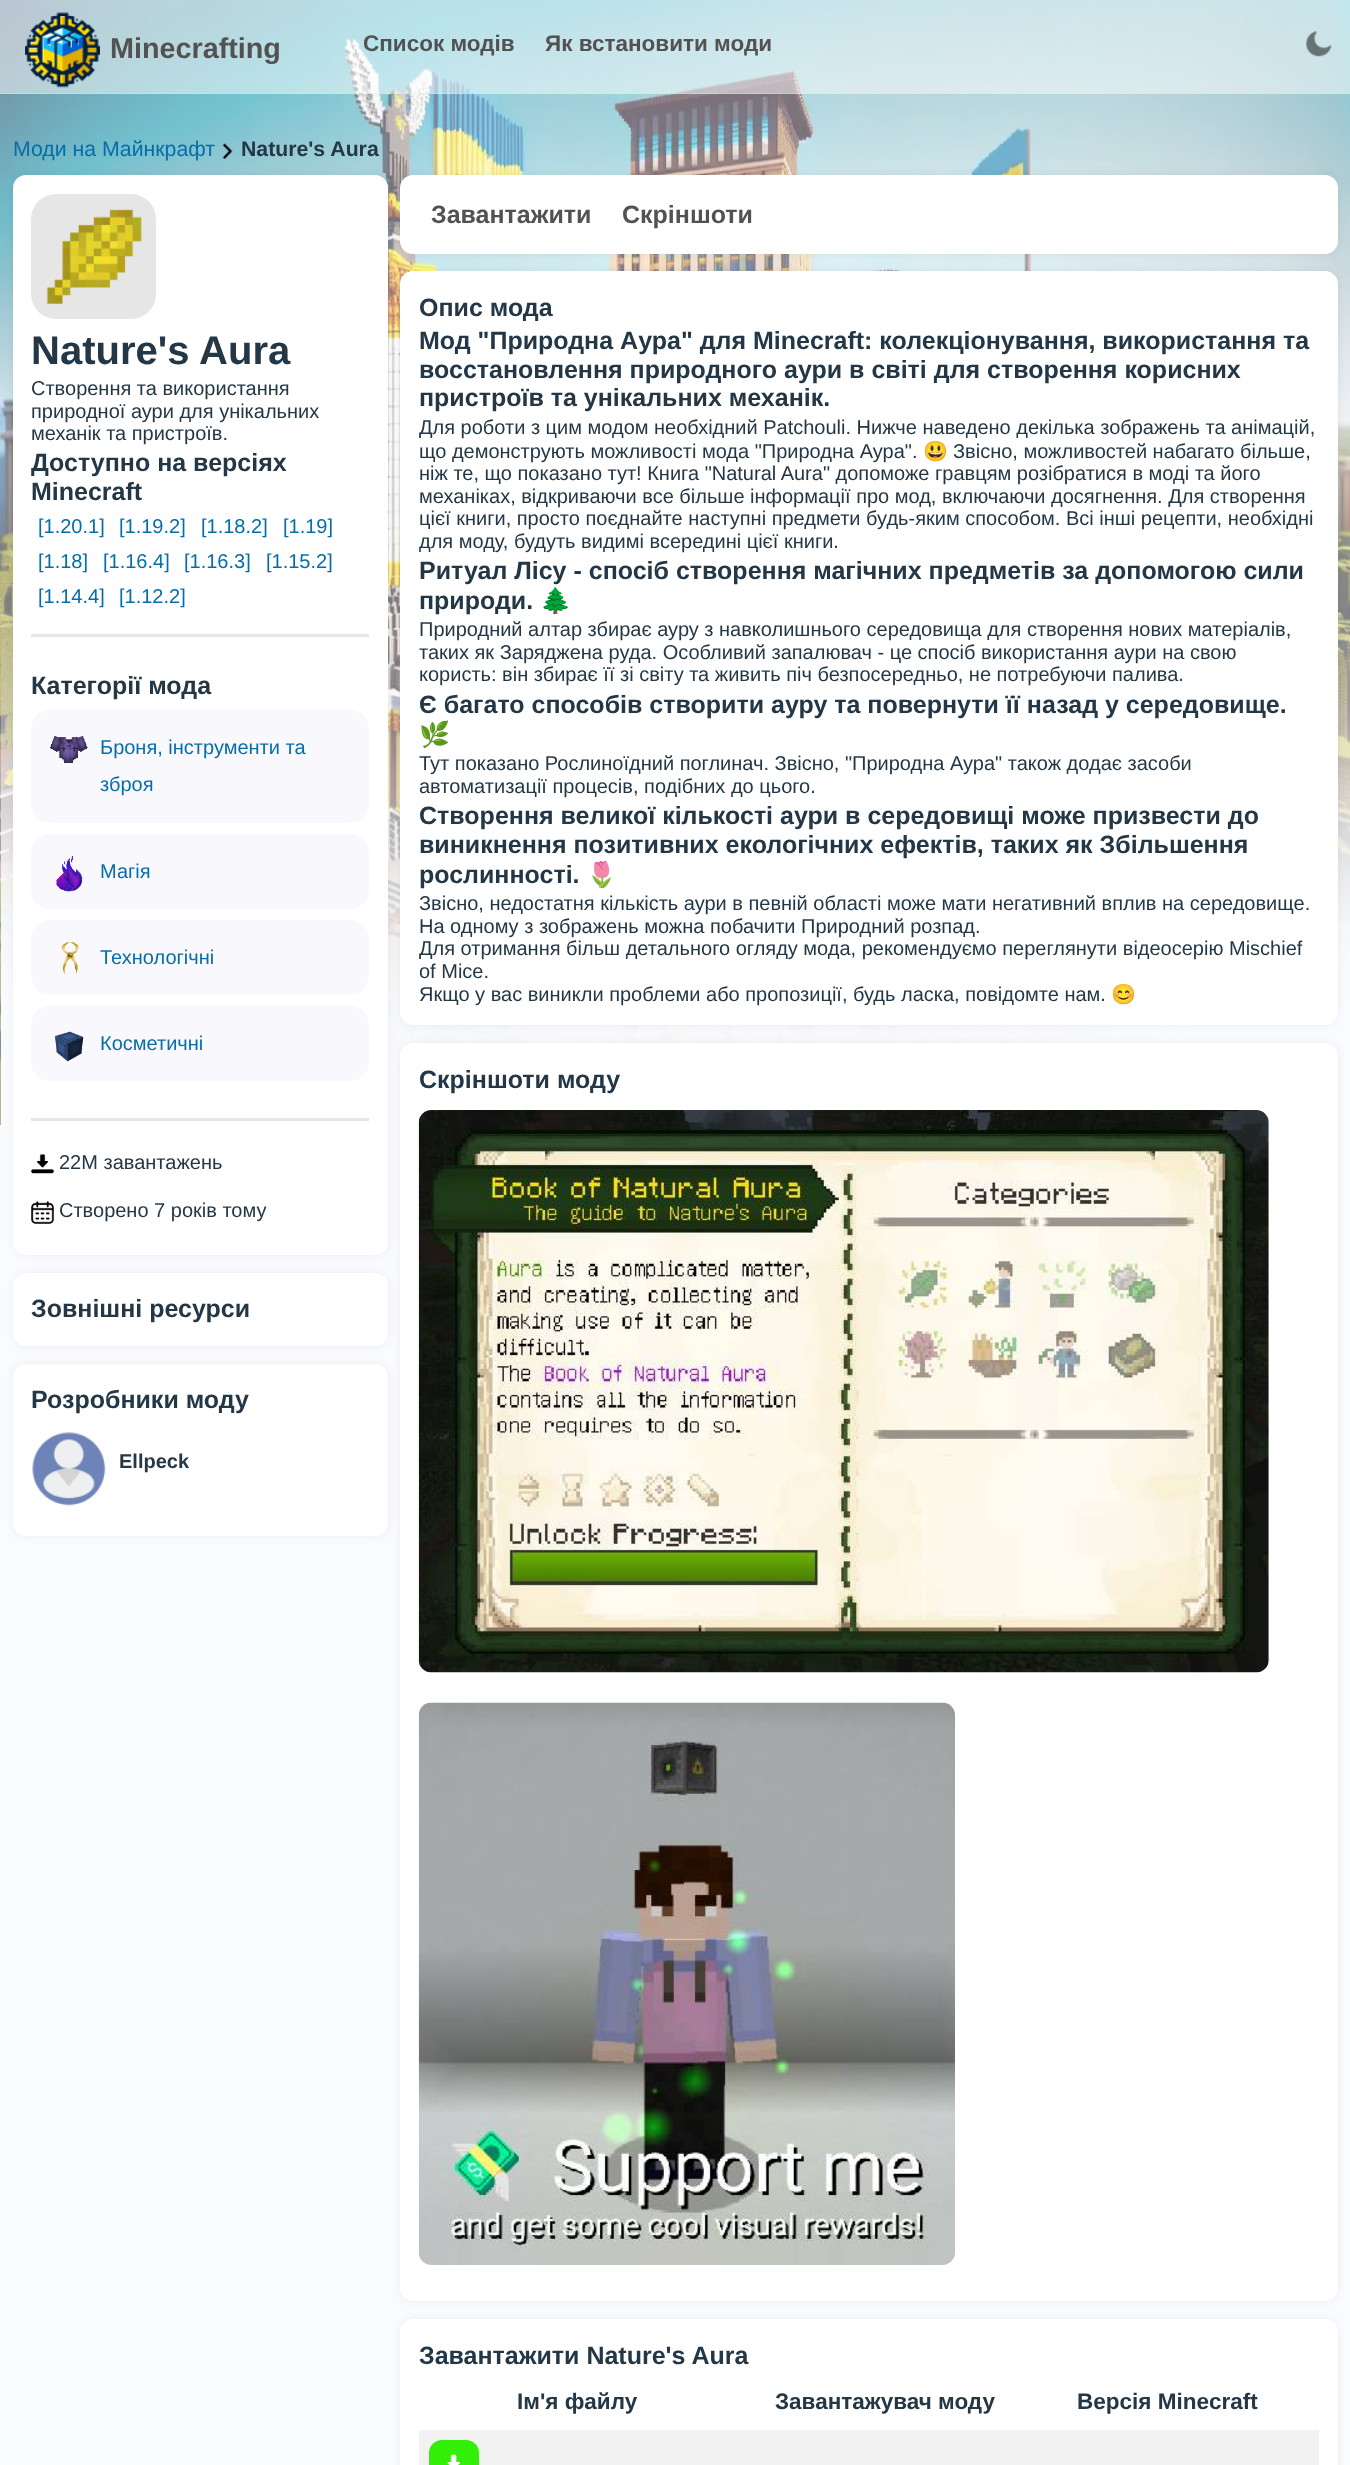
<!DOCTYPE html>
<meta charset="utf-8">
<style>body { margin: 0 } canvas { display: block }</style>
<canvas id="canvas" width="1350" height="2465"></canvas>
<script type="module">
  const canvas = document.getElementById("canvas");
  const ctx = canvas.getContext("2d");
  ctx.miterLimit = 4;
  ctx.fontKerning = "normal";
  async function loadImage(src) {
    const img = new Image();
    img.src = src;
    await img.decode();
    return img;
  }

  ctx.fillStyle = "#fafbfe";
  ctx.fillRect(0, 0, 1350, 2465);
  ctx.drawImage(await loadImage("img3.png"), 0, 0, 1350, 1125);
  ctx.fillStyle = "rgba(255, 255, 255, 0.5)";
  ctx.fillRect(0, 0, 1350, 94);
  ctx.fillStyle = "rgba(227, 227, 227, 0.4)";
  ctx.fillRect(0, 93, 1350, 1);
  ctx.drawImage(await loadImage("img1.png"), 25, 12, 75, 76);
  ctx.font = "bold 28.75px Liberation Sans";
  ctx.fillStyle = "#525252";
  ctx.fillText("Minecrafting", 110, 58);
  ctx.font = "bold 22.5px Liberation Sans";
  ctx.fillText("Список модів", 363, 51);
  ctx.fillText("Як встановити моди", 545, 51);
  ctx.drawImage(await loadImage("img2.png"), 1306, 31, 26, 26);
  ctx.font = "21.25px Liberation Sans";
  ctx.fillStyle = "#066da9";
  ctx.fillText("Моди на Майнкрафт", 13, 156);
  ctx.drawImage(await loadImage("img4.png"), 222, 143, 11, 16);
  ctx.font = "bold 21.25px Liberation Sans";
  ctx.fillStyle = "#243746";
  ctx.fillText("Nature's Aura", 241, 156);
  ctx.fillStyle = "rgba(0, 0, 0, 0.06)";
  ctx.filter = "blur(4px)";
  ctx.beginPath();
  ctx.roundRect(13, 175, 375, 1080, 13);
  ctx.fill();
  ctx.filter = "none";
  ctx.fillStyle = "#ffffff";
  ctx.beginPath();
  ctx.roundRect(13, 175, 375, 1080, 13);
  ctx.fill();
  ctx.fillStyle = "#e6e6e6";
  ctx.beginPath();
  ctx.roundRect(31, 194, 125, 125, 25);
  ctx.fill();
  ctx.drawImage(await loadImage("img5.png"), 46, 209, 96, 95);
  ctx.font = "bold 40px Liberation Sans";
  ctx.fillStyle = "#243746";
  ctx.fillText("Nature's Aura", 31, 364);
  ctx.font = "20px Liberation Sans";
  ctx.fillText("Створення та використання", 31, 395);
  ctx.fillText("природної аури для унікальних", 31, 418);
  ctx.fillText("механік та пристроїв.", 31, 440);
  ctx.font = "bold 25px Liberation Sans";
  ctx.fillText("Доступно на версіях", 31, 471);
  ctx.fillText("Minecraft", 31, 500);
  ctx.font = "20px Liberation Sans";
  ctx.fillStyle = "#066da9";
  ctx.fillText("[1.20.1]", 38, 533);
  ctx.fillText("[1.19.2]", 119, 533);
  ctx.fillText("[1.18.2]", 201, 533);
  ctx.fillText("[1.19]", 283, 533);
  ctx.fillText("[1.18]", 38, 568);
  ctx.fillText("[1.16.4]", 103, 568);
  ctx.fillText("[1.16.3]", 184, 568);
  ctx.fillText("[1.15.2]", 266, 568);
  ctx.fillText("[1.14.4]", 38, 603);
  ctx.fillText("[1.12.2]", 119, 603);
  ctx.fillStyle = "#e6e6e6";
  ctx.fillRect(31, 634, 338, 3);
  ctx.font = "bold 25px Liberation Sans";
  ctx.fillStyle = "#243746";
  ctx.fillText("Категорії мода", 31, 694);
  ctx.fillStyle = "#f9f9fd";
  ctx.beginPath();
  ctx.roundRect(31, 710, 338, 113, 19);
  ctx.fill();
  ctx.drawImage(await loadImage("img6.png"), 50, 736, 38, 27);
  ctx.font = "20px Liberation Sans";
  ctx.fillStyle = "#066da9";
  ctx.fillText("Броня, інструменти та", 100, 754);
  ctx.fillText("зброя", 100, 791);
  ctx.fillStyle = "#f9f9fd";
  ctx.beginPath();
  ctx.roundRect(31, 834, 338, 75, 19);
  ctx.fill();
  ctx.drawImage(await loadImage("img7.png"), 56, 855, 27, 37);
  ctx.fillStyle = "#066da9";
  ctx.fillText("Магія", 100, 878);
  ctx.fillStyle = "#f9f9fd";
  ctx.beginPath();
  ctx.roundRect(31, 920, 338, 75, 19);
  ctx.fill();
  ctx.drawImage(await loadImage("img8.png"), 61, 942, 18, 32);
  ctx.fillStyle = "#066da9";
  ctx.fillText("Технологічні", 100, 964);
  ctx.fillStyle = "#f9f9fd";
  ctx.beginPath();
  ctx.roundRect(31, 1006, 338, 75, 19);
  ctx.fill();
  ctx.drawImage(await loadImage("img9.png"), 54, 1031, 30, 31);
  ctx.fillStyle = "#066da9";
  ctx.fillText("Косметичні", 100, 1050);
  ctx.fillStyle = "#e6e6e6";
  ctx.fillRect(31, 1118, 338, 3);
  ctx.drawImage(await loadImage("img10.png"), 31, 1154, 23, 20);
  ctx.fillStyle = "#243746";
  ctx.fillText("22M завантажень", 59, 1169);
  ctx.drawImage(await loadImage("img11.png"), 31, 1201, 23, 23);
  ctx.fillText("Створено 7 років тому", 59, 1217);
  ctx.fillStyle = "rgba(0, 0, 0, 0.06)";
  ctx.filter = "blur(4px)";
  ctx.beginPath();
  ctx.roundRect(13, 1273, 375, 73, 13);
  ctx.fill();
  ctx.filter = "none";
  ctx.fillStyle = "#ffffff";
  ctx.beginPath();
  ctx.roundRect(13, 1273, 375, 73, 13);
  ctx.fill();
  ctx.font = "bold 25px Liberation Sans";
  ctx.fillStyle = "#243746";
  ctx.fillText("Зовнішні ресурси", 31, 1317);
  ctx.fillStyle = "rgba(0, 0, 0, 0.06)";
  ctx.filter = "blur(4px)";
  ctx.beginPath();
  ctx.roundRect(13, 1364, 375, 172, 13);
  ctx.fill();
  ctx.filter = "none";
  ctx.fillStyle = "#ffffff";
  ctx.beginPath();
  ctx.roundRect(13, 1364, 375, 172, 13);
  ctx.fill();
  ctx.fillStyle = "#243746";
  ctx.fillText("Розробники моду", 31, 1408);
  ctx.drawImage(await loadImage("img12.png"), 32, 1432, 74, 74);
  ctx.font = "bold 20px Liberation Sans";
  ctx.fillText("Ellpeck", 119, 1468);
  ctx.fillStyle = "rgba(0, 0, 0, 0.06)";
  ctx.filter = "blur(4px)";
  ctx.beginPath();
  ctx.roundRect(400, 175, 938, 79, 13);
  ctx.fill();
  ctx.filter = "none";
  ctx.fillStyle = "#ffffff";
  ctx.beginPath();
  ctx.roundRect(400, 175, 938, 79, 13);
  ctx.fill();
  ctx.font = "bold 25px Liberation Sans";
  ctx.fillStyle = "#525252";
  ctx.fillText("Завантажити", 431, 223);
  ctx.fillText("Скріншоти", 622, 223);
  ctx.fillStyle = "rgba(0, 0, 0, 0.06)";
  ctx.filter = "blur(4px)";
  ctx.beginPath();
  ctx.roundRect(400, 271, 938, 754, 13);
  ctx.fill();
  ctx.filter = "none";
  ctx.fillStyle = "#ffffff";
  ctx.beginPath();
  ctx.roundRect(400, 271, 938, 754, 13);
  ctx.fill();
  ctx.fillStyle = "#243746";
  ctx.fillText("Опис мода", 419, 316);
  ctx.fillText("Мод \"Природна Аура\" для Minecraft: колекціонування, використання та", 419, 349);
  ctx.fillText("восстановлення природного аури в світі для створення корисних", 419, 378);
  ctx.fillText("пристроїв та унікальних механік.", 419, 406);
  ctx.font = "20px Liberation Sans";
  ctx.fillText("Для роботи з цим модом необхідний Patchouli. Нижче наведено декілька зображень та анімацій,", 419, 434);
  ctx.fillText("що демонструють можливості мода \"Природна Аура\".", 419, 458);
  ctx.font = "20px Noto Color Emoji";
  ctx.fillText("😃", 923, 458);
  ctx.font = "20px Liberation Sans";
  ctx.fillText("Звісно, можливостей набагато більше,", 953, 458);
  ctx.fillText("ніж те, що показано тут! Книга \"Natural Aura\" допоможе гравцям розібратися в моді та його", 419, 480);
  ctx.fillText("механіках, відкриваючи все більше інформації про мод, включаючи досягнення. Для створення", 419, 503);
  ctx.fillText("цієї книги, просто поєднайте наступні предмети будь-яким способом. Всі інші рецепти, необхідні", 419, 525);
  ctx.fillText("для моду, будуть видимі всередині цієї книги.", 419, 548);
  ctx.font = "bold 25px Liberation Sans";
  ctx.fillText("Ритуал Лісу - спосіб створення магічних предметів за допомогою сили", 419, 579);
  ctx.fillText("природи.", 419, 609);
  ctx.font = "bold 25px Noto Color Emoji";
  ctx.fillText("🌲", 540, 609);
  ctx.font = "20px Liberation Sans";
  ctx.fillText("Природний алтар збирає ауру з навколишнього середовища для створення нових матеріалів,", 419, 636);
  ctx.fillText("таких як Заряджена руда. Особливий запалювач - це спосіб використання аури на свою", 419, 659);
  ctx.fillText("користь: він збирає її зі світу та живить піч безпосередньо, не потребуючи палива.", 419, 681);
  ctx.font = "bold 25px Liberation Sans";
  ctx.fillText("Є багато способів створити ауру та повернути її назад у середовище.", 419, 713);
  ctx.font = "bold 25px Noto Color Emoji";
  ctx.fillText("🌿", 419, 743);
  ctx.font = "20px Liberation Sans";
  ctx.fillText("Тут показано Рослиноїдний поглинач. Звісно, \"Природна Аура\" також додає засоби", 419, 770);
  ctx.fillText("автоматизації процесів, подібних до цього.", 419, 793);
  ctx.font = "bold 25px Liberation Sans";
  ctx.fillText("Створення великої кількості аури в середовищі може призвести до", 419, 824);
  ctx.fillText("виникнення позитивних екологічних ефектів, таких як Збільшення", 419, 853);
  ctx.fillText("рослинності.", 419, 883);
  ctx.font = "bold 25px Noto Color Emoji";
  ctx.fillText("🌷", 586, 883);
  ctx.font = "20px Liberation Sans";
  ctx.fillText("Звісно, недостатня кількість аури в певній області може мати негативний вплив на середовище.", 419, 910);
  ctx.fillText("На одному з зображень можна побачити Природний розпад.", 419, 933);
  ctx.fillText("Для отримання більш детального огляду мода, рекомендуємо переглянути відеосерію Mischief", 419, 955);
  ctx.fillText("of Mice.", 419, 978);
  ctx.fillText("Якщо у вас виникли проблеми або пропозиції, будь ласка, повідомте нам.", 419, 1001);
  ctx.font = "20px Noto Color Emoji";
  ctx.fillText("😊", 1111, 1001);
  ctx.fillStyle = "rgba(0, 0, 0, 0.06)";
  ctx.filter = "blur(4px)";
  ctx.beginPath();
  ctx.roundRect(400, 1043, 938, 1258, 13);
  ctx.fill();
  ctx.filter = "none";
  ctx.fillStyle = "#ffffff";
  ctx.beginPath();
  ctx.roundRect(400, 1043, 938, 1258, 13);
  ctx.fill();
  ctx.font = "bold 25px Liberation Sans";
  ctx.fillStyle = "#243746";
  ctx.fillText("Скріншоти моду", 419, 1088);
  ctx.drawImage(await loadImage("img13.png"), 418, 1110, 851, 563);
  ctx.drawImage(await loadImage("img14.png"), 418, 1702, 537, 563);
  ctx.fillStyle = "rgba(0, 0, 0, 0.06)";
  ctx.filter = "blur(4px)";
  ctx.beginPath();
  ctx.roundRect(400, 2319, 938, 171, 13);
  ctx.fill();
  ctx.filter = "none";
  ctx.fillStyle = "#ffffff";
  ctx.beginPath();
  ctx.roundRect(400, 2319, 938, 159, 13);
  ctx.fill();
  ctx.fillStyle = "#243746";
  ctx.fillText("Завантажити Nature's Aura", 419, 2364);
  ctx.font = "bold 22.5px Liberation Sans";
  ctx.fillText("Ім'я файлу", 517, 2409);
  ctx.fillText("Завантажувач моду", 775, 2409);
  ctx.fillText("Версія Minecraft", 1077, 2409);
  ctx.fillStyle = "#f2f2f2";
  ctx.fillRect(419, 2430, 900, 35);
  ctx.fillStyle = "#31ef07";
  ctx.beginPath();
  ctx.roundRect(429, 2440, 50, 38, 13);
  ctx.fill();
  ctx.drawImage(await loadImage("img15.png"), 447, 2454, 13, 11);
</script>
